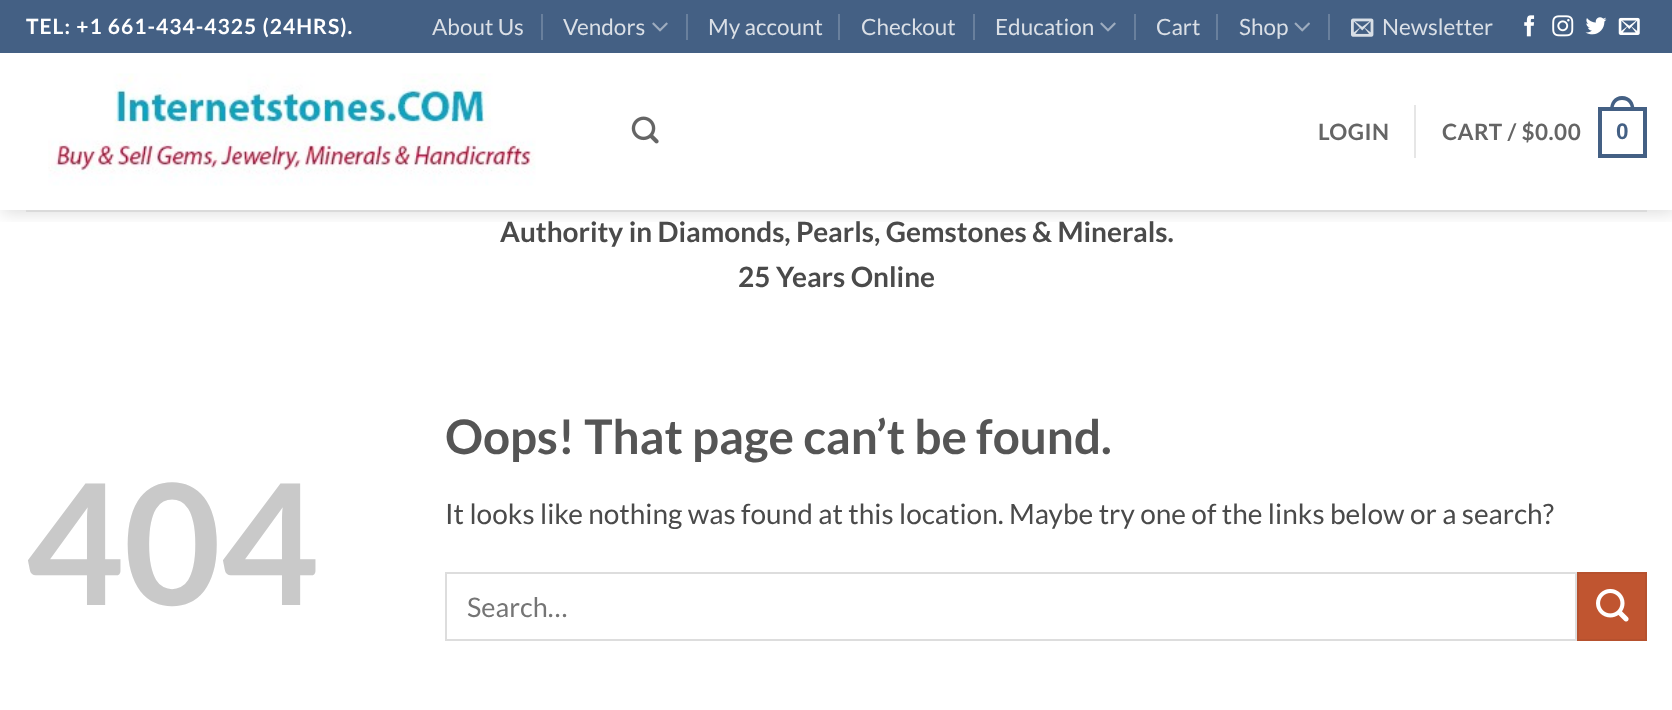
<!DOCTYPE html>
<meta charset="utf-8">
<style>body { margin: 0 } canvas { display: block }</style>
<canvas id="canvas" width="1672" height="710"></canvas>
<script type="module">
  const canvas = document.getElementById("canvas");
  const ctx = canvas.getContext("2d");
  ctx.miterLimit = 4;
  ctx.fontKerning = "normal";
  async function loadImage(src) {
    const img = new Image();
    img.src = src;
    await img.decode();
    return img;
  }

  ctx.fillStyle = "#ffffff";
  ctx.fillRect(0, 0, 1672, 710);
  ctx.save();
  ctx.beginPath();
  ctx.rect(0, 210, 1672, 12);
  ctx.clip();
  ctx.fillStyle = "rgba(0, 0, 0, 0.15)";
  ctx.filter = "blur(9px)";
  ctx.beginPath();
  ctx.rect(2, 2, 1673, 210);
  ctx.fill();
  ctx.filter = "none";
  ctx.restore();
  ctx.fillStyle = "#446084";
  ctx.fillRect(0, 0, 1672, 53);
  ctx.letterSpacing = "1.05px";
  ctx.font = "bold 21px Lato";
  ctx.fillStyle = "#ffffff";
  ctx.fillText("TEL: +1 661-434-4325 (24HRS).", 26, 34);
  ctx.letterSpacing = "0px";
  ctx.font = "22.5px Lato";
  ctx.fillStyle = "#dadfe6";
  ctx.fillText("About Us", 432, 35);
  ctx.fillStyle = "#69809d";
  ctx.fillRect(541, 14, 2, 26);
  ctx.fillStyle = "#dadfe6";
  ctx.fillText("Vendors", 563, 35);
  ctx.drawImage(await loadImage("img1.png"), 652, 22, 16, 10);
  ctx.fillStyle = "#69809d";
  ctx.fillRect(686, 14, 2, 26);
  ctx.fillStyle = "#dadfe6";
  ctx.fillText("My account", 708, 35);
  ctx.fillStyle = "#69809d";
  ctx.fillRect(838, 14, 2, 26);
  ctx.fillStyle = "#dadfe6";
  ctx.fillText("Checkout", 861, 35);
  ctx.fillStyle = "#69809d";
  ctx.fillRect(973, 14, 2, 26);
  ctx.fillStyle = "#dadfe6";
  ctx.fillText("Education", 995, 35);
  ctx.drawImage(await loadImage("img1.png"), 1100, 22, 16, 10);
  ctx.fillStyle = "#69809d";
  ctx.fillRect(1134, 14, 2, 26);
  ctx.fillStyle = "#dadfe6";
  ctx.fillText("Cart", 1156, 35);
  ctx.fillStyle = "#69809d";
  ctx.fillRect(1216, 14, 2, 26);
  ctx.fillStyle = "#dadfe6";
  ctx.fillText("Shop", 1239, 35);
  ctx.drawImage(await loadImage("img2.png"), 1294, 22, 16, 10);
  ctx.fillStyle = "#69809d";
  ctx.fillRect(1328, 14, 2, 26);
  ctx.drawImage(await loadImage("img3.png"), 1351, 18, 23, 19);
  ctx.fillStyle = "#dadfe6";
  ctx.fillText("Newsletter", 1382, 35);
  ctx.drawImage(await loadImage("img4.png"), 1524, 15, 11, 22);
  ctx.drawImage(await loadImage("img5.png"), 1552, 15, 22, 22);
  ctx.drawImage(await loadImage("img6.png"), 1585, 17, 22, 18);
  ctx.drawImage(await loadImage("img7.png"), 1618, 17, 22, 18);
  ctx.drawImage(await loadImage("img8.png"), 48, 73, 488, 113);
  ctx.drawImage(await loadImage("img9.png"), 631, 116, 28, 28);
  ctx.letterSpacing = "0.5px";
  ctx.font = "bold 22.5px Lato";
  ctx.fillStyle = "#656565";
  ctx.fillText("LOGIN", 1318, 140);
  ctx.fillStyle = "#e6e6e6";
  ctx.fillRect(1414, 105, 2, 53);
  ctx.fillStyle = "#656565";
  ctx.fillText("CART / $0.00", 1442, 140);
  ctx.strokeStyle = "#446084";
  ctx.lineWidth = 4;
  ctx.strokeRect(1600, 109, 45, 47);
  ctx.fillStyle = "#446084";
  ctx.beginPath();
  ctx.moveTo(1622, 96);
  ctx.bezierCurveTo(1630.5, 96, 1634.5, 102.5, 1634.5, 110);
  ctx.lineTo(1610, 110);
  ctx.bezierCurveTo(1610, 102.5, 1614, 96, 1622, 96);
  ctx.closePath();
  ctx.moveTo(1622, 100);
  ctx.bezierCurveTo(1628.5, 100, 1631, 104.5, 1631, 110);
  ctx.lineTo(1613.5, 110);
  ctx.bezierCurveTo(1613.5, 104.5, 1616, 100, 1622, 100);
  ctx.closePath();
  ctx.fill("evenodd");
  ctx.font = "bold 22.5px Liberation Sans";
  ctx.fillText("0", 1616, 139);
  ctx.fillStyle = "#dadada";
  ctx.fillRect(26, 210, 1621, 2);
  ctx.letterSpacing = "0px";
  ctx.font = "bold 28px Lato";
  ctx.fillStyle = "#4a4a4a";
  ctx.fillText("Authority in Diamonds, Pearls, Gemstones & Minerals.", 500, 242);
  ctx.fillText("25 Years Online", 738, 287);
  ctx.font = "bold 168px Lato";
  ctx.fillStyle = "#c9c9c9";
  ctx.fillText("404", 26, 605);
  ctx.font = "bold 47.6px Lato";
  ctx.fillStyle = "#555555";
  ctx.fillText("Oops! That page can’t be found.", 445, 454);
  ctx.font = "28px Lato";
  ctx.fillStyle = "#4a4a4a";
  ctx.fillText("It looks like nothing was found at this location. Maybe try one of the links below or a search?", 445, 524);
  ctx.strokeStyle = "#dddddd";
  ctx.lineWidth = 2;
  ctx.strokeRect(446, 573, 1130, 67);
  ctx.font = "27px Lato";
  ctx.fillStyle = "#757575";
  ctx.fillText("Search…", 467, 617);
  ctx.fillStyle = "#c05530";
  ctx.beginPath();
  ctx.rect(1578, 573, 68, 67);
  ctx.fill();
  ctx.strokeStyle = "#b6512e";
  ctx.stroke();
  ctx.drawImage(await loadImage("img10.png"), 1596, 588, 33, 34);
</script>
